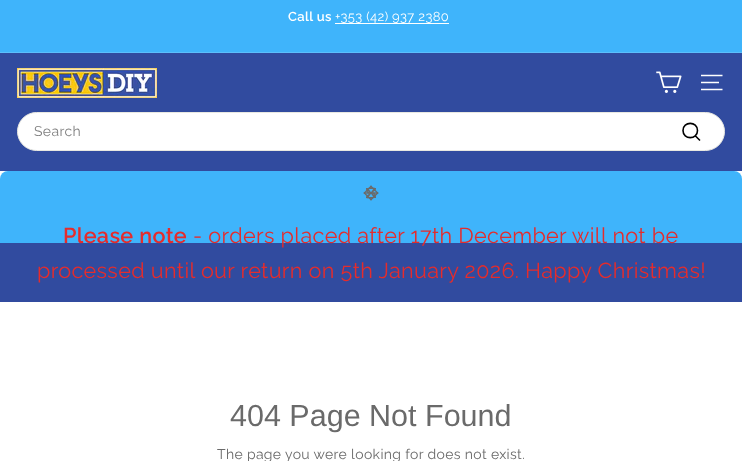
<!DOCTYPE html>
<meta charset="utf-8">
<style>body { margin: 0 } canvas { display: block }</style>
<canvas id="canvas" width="742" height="461"></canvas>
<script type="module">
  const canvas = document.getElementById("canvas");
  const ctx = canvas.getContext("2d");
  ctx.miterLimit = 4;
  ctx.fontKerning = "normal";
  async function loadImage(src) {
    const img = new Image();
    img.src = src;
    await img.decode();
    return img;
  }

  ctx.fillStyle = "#ffffff";
  ctx.fillRect(0, 0, 742, 461);
  ctx.fillStyle = "#3fb4fb";
  ctx.fillRect(0, 0, 742, 52);
  ctx.letterSpacing = "0.35px";
  ctx.font = "600 13px Raleway";
  ctx.fillStyle = "#ffffff";
  ctx.fillText("Call us", 288, 21);
  ctx.font = "13px Raleway";
  ctx.fillText("+353 (42) 937 2380", 335, 21);
  ctx.fillRect(335, 23, 114, 1);
  ctx.fillStyle = "#5cbffc";
  ctx.fillRect(0, 52, 742, 1);
  ctx.fillStyle = "#314b9f";
  ctx.fillRect(0, 53, 742, 118);
  ctx.drawImage(await loadImage("img1.png"), 17, 68, 140, 30);
  ctx.drawImage(await loadImage("img2.png"), 656, 71, 26, 22);
  ctx.beginPath();
  ctx.moveTo(701, 75.5);
  ctx.lineTo(722.5, 75.5);
  ctx.moveTo(701, 82.5);
  ctx.lineTo(719, 82.5);
  ctx.moveTo(701, 89.5);
  ctx.lineTo(722.5, 89.5);
  ctx.strokeStyle = "#ffffff";
  ctx.lineWidth = 1.7;
  ctx.lineJoin = "round";
  ctx.stroke();
  ctx.fillStyle = "#ffffff";
  ctx.beginPath();
  ctx.roundRect(17.5, 112.5, 707, 38, 19);
  ctx.fill();
  ctx.strokeStyle = "#e8e8e1";
  ctx.lineWidth = 1;
  ctx.lineJoin = "miter";
  ctx.stroke();
  ctx.font = "14px Raleway";
  ctx.fillStyle = "#808080";
  ctx.fillText("Search", 34, 136);
  ctx.beginPath();
  ctx.moveTo(697.5, 130.5);
  ctx.bezierCurveTo(697.5, 140, 683, 140, 683, 130.5);
  ctx.bezierCurveTo(683, 121, 697.5, 121, 697.5, 130.5);
  ctx.moveTo(700, 140.5);
  ctx.lineTo(695.5, 136);
  ctx.strokeStyle = "#000000";
  ctx.lineWidth = 1.6;
  ctx.lineJoin = "round";
  ctx.stroke();
  ctx.fillStyle = "#3fb4fb";
  ctx.beginPath();
  ctx.roundRect(0, 171, 742, 131, 8);
  ctx.fill();
  ctx.drawImage(await loadImage("img3.png"), 363, 185, 16, 16);
  ctx.fillStyle = "#314b9f";
  ctx.fillRect(0, 243, 742, 59);
  ctx.font = "600 21.6px Raleway";
  ctx.fillStyle = "#e52c2c";
  ctx.fillText("Please note", 63, 243);
  ctx.font = "21.6px Raleway";
  ctx.fillText("- orders placed after 17th December will not be", 193, 243);
  ctx.fillText("processed until our return on 5th January 2026. Happy Christmas!", 37, 278);
  ctx.letterSpacing = "0px";
  ctx.font = "30.5px Arimo";
  ctx.fillStyle = "#6a6a6a";
  ctx.fillText("404 Page Not Found", 230, 426);
  ctx.letterSpacing = "0.35px";
  ctx.font = "14px Raleway";
  ctx.fillText("The page you were looking for does not exist.", 217, 459);
</script>
